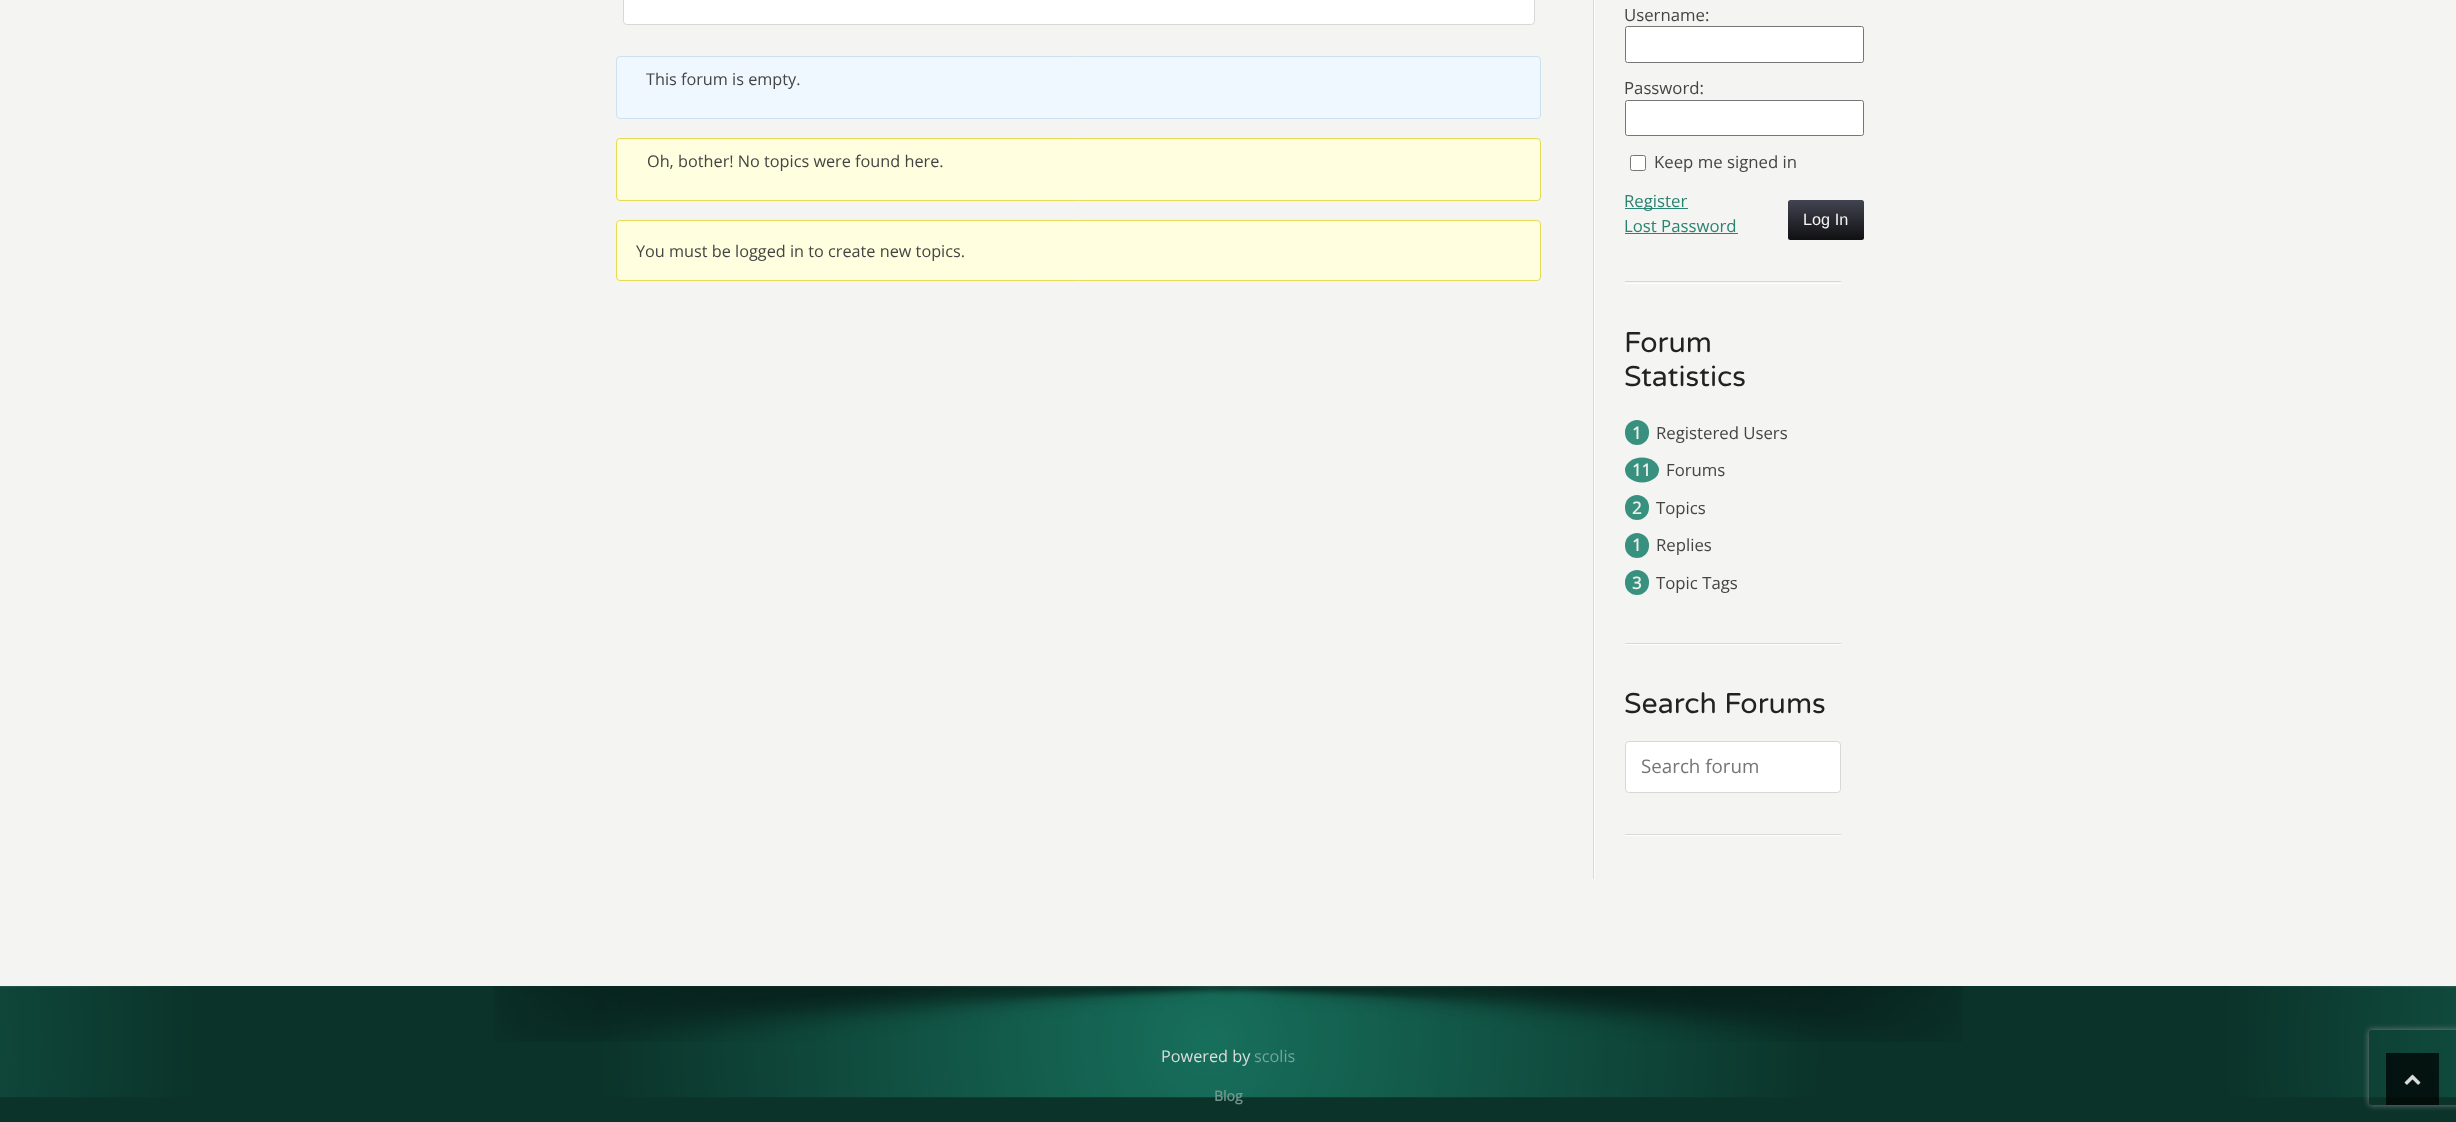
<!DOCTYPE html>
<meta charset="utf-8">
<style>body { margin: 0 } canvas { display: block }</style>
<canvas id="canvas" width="2456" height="1122"></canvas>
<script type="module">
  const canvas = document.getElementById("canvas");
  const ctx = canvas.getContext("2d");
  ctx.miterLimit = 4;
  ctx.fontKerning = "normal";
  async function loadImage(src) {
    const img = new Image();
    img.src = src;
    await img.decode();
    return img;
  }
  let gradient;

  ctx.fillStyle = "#f4f4f2";
  ctx.fillRect(0, 0, 2456, 1122);
  ctx.fillStyle = "#ffffff";
  ctx.beginPath();
  ctx.roundRect(623.5, -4.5, 911, 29, 3.5);
  ctx.fill();
  ctx.strokeStyle = "#d8d8d6";
  ctx.stroke();
  ctx.fillStyle = "#f0f8ff";
  ctx.beginPath();
  ctx.roundRect(616.5, 56.5, 924, 62, 3.5);
  ctx.fill();
  ctx.strokeStyle = "#cee1ef";
  ctx.stroke();
  ctx.font = "16.25px Open Sans";
  ctx.fillStyle = "#444444";
  ctx.fillText("This forum is empty.", 646, 85);
  ctx.fillStyle = "#ffffe0";
  ctx.beginPath();
  ctx.roundRect(616.5, 138.5, 924, 62, 3.5);
  ctx.fill();
  ctx.strokeStyle = "#e6db55";
  ctx.stroke();
  ctx.fillStyle = "#444444";
  ctx.fillText("Oh, bother! No topics were found here.", 647, 167);
  ctx.fillStyle = "#ffffe0";
  ctx.beginPath();
  ctx.roundRect(616.5, 220.5, 924, 60, 3.5);
  ctx.fill();
  ctx.stroke();
  ctx.fillStyle = "#444444";
  ctx.fillText("You must be logged in to create new topics.", 636, 257);
  ctx.fillStyle = "#d8d8d6";
  ctx.fillRect(1593, 0, 1, 879);
  ctx.fillStyle = "#fefefc";
  ctx.fillRect(1594, 0, 1, 879);
  ctx.fillRect(1625, 283, 216, 1);
  ctx.font = "16.75px Open Sans";
  ctx.fillStyle = "#444444";
  ctx.fillText("Username:", 1624, 21);
  ctx.fillStyle = "#ffffff";
  ctx.beginPath();
  ctx.roundRect(1625.5, 26.5, 238, 36, 2);
  ctx.fill();
  ctx.strokeStyle = "#767676";
  ctx.stroke();
  ctx.fillStyle = "#444444";
  ctx.fillText("Password:", 1624, 94);
  ctx.fillStyle = "#ffffff";
  ctx.beginPath();
  ctx.roundRect(1625.5, 100.5, 238, 35, 2);
  ctx.fill();
  ctx.stroke();
  ctx.beginPath();
  ctx.roundRect(1630.5, 155.5, 15, 15, 2);
  ctx.fill();
  ctx.stroke();
  ctx.fillStyle = "#444444";
  ctx.fillText("Keep me signed in", 1654, 168);
  ctx.fillStyle = "#2a8371";
  ctx.fillRect(1625, 208, 63, 1);
  ctx.fillText("Register", 1624, 207);
  ctx.fillText("Lost Password", 1624, 232);
  ctx.fillRect(1625, 233, 113, 1);
  gradient = ctx.createLinearGradient(1826, 200, 1826, 240);
  gradient.addColorStop(0, "#424451");
  gradient.addColorStop(1, "#101012");
  ctx.fillStyle = gradient;
  ctx.beginPath();
  ctx.roundRect(1788, 200, 76, 40, 2.5);
  ctx.fill();
  ctx.font = "16.25px Liberation Sans";
  ctx.fillStyle = "#f4f4f2";
  ctx.fillText("Log In", 1803, 225);
  ctx.fillStyle = "#d8d8d6";
  ctx.fillRect(1625, 281, 216, 1);
  ctx.fillStyle = "#fefefc";
  ctx.fillRect(1625, 644, 216, 1);
  ctx.font = "28.5px Varela Round";
  ctx.fillStyle = "#222222";
  ctx.fillText("Forum", 1624, 352);
  ctx.fillText("Statistics", 1624, 386);
  ctx.fillStyle = "#38917f";
  ctx.beginPath();
  ctx.roundRect(1625, 420, 24, 25, 12);
  ctx.fill();
  ctx.font = "bold 16.75px Open Sans";
  ctx.fillStyle = "#eeeeee";
  ctx.fillText("1", 1632, 439);
  ctx.font = "16.75px Open Sans";
  ctx.fillStyle = "#444444";
  ctx.fillText("Registered Users", 1656, 439);
  ctx.fillStyle = "#38917f";
  ctx.beginPath();
  ctx.ellipse(1642, 470, 17, 12.5, 0, 0, Math.PI * 2);
  ctx.fill();
  ctx.font = "bold 16.75px Open Sans";
  ctx.fillStyle = "#eeeeee";
  ctx.fillText("11", 1632, 476);
  ctx.font = "16.75px Open Sans";
  ctx.fillStyle = "#444444";
  ctx.fillText("Forums", 1666, 476);
  ctx.fillStyle = "#38917f";
  ctx.beginPath();
  ctx.roundRect(1625, 495, 24, 25, 12);
  ctx.fill();
  ctx.font = "bold 16.75px Open Sans";
  ctx.fillStyle = "#eeeeee";
  ctx.fillText("2", 1632, 514);
  ctx.font = "16.75px Open Sans";
  ctx.fillStyle = "#444444";
  ctx.fillText("Topics", 1656, 514);
  ctx.fillStyle = "#38917f";
  ctx.beginPath();
  ctx.roundRect(1625, 533, 24, 25, 12);
  ctx.fill();
  ctx.font = "bold 16.75px Open Sans";
  ctx.fillStyle = "#eeeeee";
  ctx.fillText("1", 1632, 551);
  ctx.font = "16.75px Open Sans";
  ctx.fillStyle = "#444444";
  ctx.fillText("Replies", 1656, 551);
  ctx.fillStyle = "#38917f";
  ctx.beginPath();
  ctx.roundRect(1625, 570, 24, 25, 12);
  ctx.fill();
  ctx.font = "bold 16.75px Open Sans";
  ctx.fillStyle = "#eeeeee";
  ctx.fillText("3", 1632, 589);
  ctx.font = "16.75px Open Sans";
  ctx.fillStyle = "#444444";
  ctx.fillText("Topic Tags", 1656, 589);
  ctx.fillStyle = "#d8d8d6";
  ctx.fillRect(1625, 643, 216, 1);
  ctx.fillStyle = "#fefefc";
  ctx.fillRect(1625, 835, 216, 1);
  ctx.font = "28.5px Varela Round";
  ctx.fillStyle = "#222222";
  ctx.fillText("Search Forums", 1624, 713);
  ctx.fillStyle = "#ffffff";
  ctx.beginPath();
  ctx.roundRect(1625.5, 741.5, 215, 51, 3.5);
  ctx.fill();
  ctx.strokeStyle = "#d8d8d6";
  ctx.stroke();
  ctx.font = "18.75px Open Sans";
  ctx.fillStyle = "#757575";
  ctx.fillText("Search forum", 1641, 773);
  ctx.fillStyle = "#d8d8d6";
  ctx.fillRect(1625, 834, 216, 1);
  ctx.fillStyle = "#0b332a";
  ctx.fillRect(0, 1097, 2456, 25);
  ctx.drawImage(await loadImage("img2.png"), 0, 986, 2456, 112);
  ctx.drawImage(await loadImage("img1.png"), 494, 986, 1469, 56);
  ctx.font = "16.25px Open Sans";
  ctx.fillStyle = "#dddddd";
  ctx.fillText("Powered by", 1161, 1062);
  ctx.fillStyle = "#73a599";
  ctx.fillText("scolis", 1254, 1062);
  ctx.font = "bold 14px Open Sans";
  ctx.fillStyle = "#70968d";
  ctx.fillText("Blog", 1214, 1101);
  ctx.fillStyle = "rgba(0, 0, 0, 0.72)";
  ctx.fillRect(2386, 1053, 53, 52);
  ctx.drawImage(await loadImage("img3.png"), 2404, 1074, 17, 11);
  ctx.save();
  ctx.beginPath();
  ctx.moveTo(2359, 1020);
  ctx.lineTo(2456, 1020);
  ctx.lineTo(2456, 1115);
  ctx.lineTo(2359, 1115);
  ctx.closePath();
  ctx.moveTo(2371.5, 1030);
  ctx.lineTo(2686.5, 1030);
  ctx.bezierCurveTo(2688, 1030, 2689, 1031, 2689, 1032.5);
  ctx.lineTo(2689, 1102.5);
  ctx.bezierCurveTo(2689, 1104, 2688, 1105, 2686.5, 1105);
  ctx.lineTo(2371.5, 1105);
  ctx.bezierCurveTo(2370, 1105, 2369, 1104, 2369, 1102.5);
  ctx.lineTo(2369, 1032.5);
  ctx.bezierCurveTo(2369, 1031, 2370, 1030, 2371.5, 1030);
  ctx.closePath();
  ctx.clip("evenodd");
  ctx.fillStyle = "#808080";
  ctx.filter = "blur(3px)";
  ctx.beginPath();
  ctx.roundRect(2369, 1030, 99, 75, 2.5);
  ctx.fill();
  ctx.filter = "none";
  ctx.restore();
</script>
